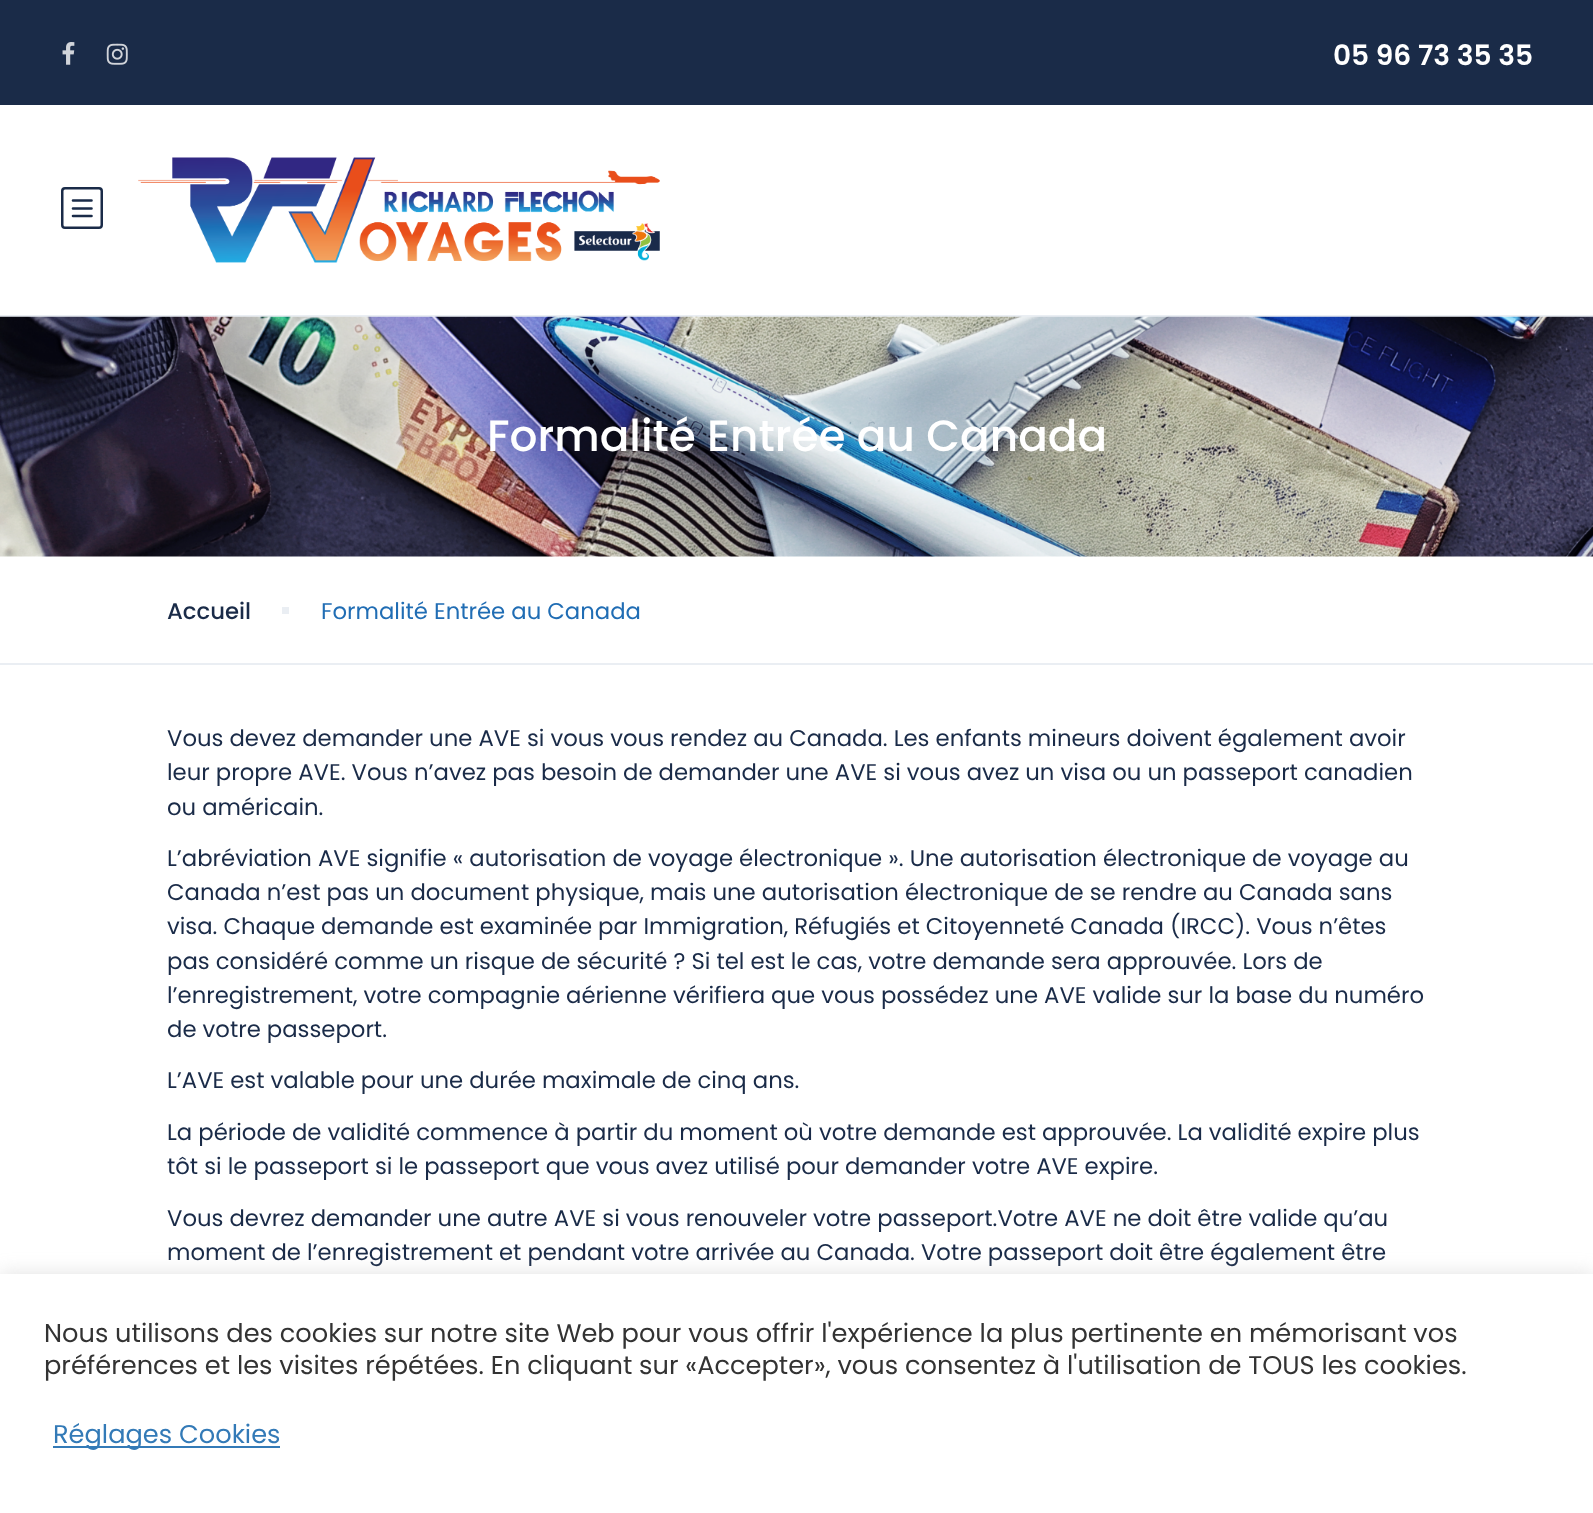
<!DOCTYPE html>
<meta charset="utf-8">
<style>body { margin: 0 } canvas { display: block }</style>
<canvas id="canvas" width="1593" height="1513"></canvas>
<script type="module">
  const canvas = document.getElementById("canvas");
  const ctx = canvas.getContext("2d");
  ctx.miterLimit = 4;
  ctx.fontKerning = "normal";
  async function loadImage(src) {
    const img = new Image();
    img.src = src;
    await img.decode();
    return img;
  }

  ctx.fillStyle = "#ffffff";
  ctx.fillRect(0, 0, 1593, 1513);
  ctx.fillStyle = "#1a2b48";
  ctx.fillRect(0, 0, 1593, 105);
  ctx.drawImage(await loadImage("img1.png"), 62, 42, 13, 23);
  ctx.drawImage(await loadImage("img2.png"), 106, 43, 22, 22);
  ctx.font = "600 28px Poppins";
  ctx.fillStyle = "#ffffff";
  ctx.fillText("05 96 73 35 35", 1333, 65);
  ctx.fillStyle = "#eaeef3";
  ctx.fillRect(0, 315, 1593, 2);
  ctx.beginPath();
  ctx.roundRect(62.25, 188.25, 39.5, 39.5, 2.75);
  ctx.strokeStyle = "#1a2b48";
  ctx.lineWidth = 2.5;
  ctx.stroke();
  ctx.beginPath();
  ctx.moveTo(73, 200.5);
  ctx.lineTo(91.5, 200.5);
  ctx.moveTo(73, 208.5);
  ctx.lineTo(91.5, 208.5);
  ctx.moveTo(73, 216);
  ctx.lineTo(91.5, 216);
  ctx.lineWidth = 2.6;
  ctx.lineCap = "round";
  ctx.lineJoin = "round";
  ctx.stroke();
  ctx.drawImage(await loadImage("img3.png"), 138, 157, 522, 106);
  ctx.drawImage(await loadImage("img4.png"), 0, 316, 1593, 241);
  ctx.font = "500 43.75px Poppins";
  ctx.fillStyle = "#ffffff";
  ctx.fillText("Formalité Entrée au Canada", 487, 451);
  ctx.fillStyle = "#eaeef3";
  ctx.fillRect(0, 663, 1593, 2);
  ctx.font = "500 22.75px Poppins";
  ctx.fillStyle = "#1a2b48";
  ctx.fillText("Accueil", 167, 619);
  ctx.fillStyle = "#eaeef3";
  ctx.fillRect(282, 607, 7, 7);
  ctx.font = "22.75px Poppins";
  ctx.fillStyle = "#206db4";
  ctx.fillText("Formalité Entrée au Canada", 321, 619);
  ctx.fillStyle = "#1a2b48";
  ctx.fillText("Vous devez demander une AVE si vous vous rendez au Canada. Les enfants mineurs doivent également avoir", 167, 746);
  ctx.fillText("leur propre AVE. Vous n’avez pas besoin de demander une AVE si vous avez un visa ou un passeport canadien", 167, 780);
  ctx.fillText("ou américain.", 167, 815);
  ctx.fillText("L’abréviation AVE signifie « autorisation de voyage électronique ». Une autorisation électronique de voyage au", 167, 866);
  ctx.fillText("Canada n’est pas un document physique, mais une autorisation électronique de se rendre au Canada sans", 167, 900);
  ctx.fillText("visa. Chaque demande est examinée par Immigration, Réfugiés et Citoyenneté Canada (IRCC). Vous n’êtes", 167, 934);
  ctx.fillText("pas considéré comme un risque de sécurité ? Si tel est le cas, votre demande sera approuvée. Lors de", 167, 969);
  ctx.fillText("l’enregistrement, votre compagnie aérienne vérifiera que vous possédez une AVE valide sur la base du numéro", 167, 1003);
  ctx.fillText("de votre passeport.", 167, 1037);
  ctx.fillText("L’AVE est valable pour une durée maximale de cinq ans.", 167, 1088);
  ctx.fillText("La période de validité commence à partir du moment où votre demande est approuvée. La validité expire plus", 167, 1140);
  ctx.fillText("tôt si le passeport si le passeport que vous avez utilisé pour demander votre AVE expire.", 167, 1174);
  ctx.fillText("Vous devrez demander une autre AVE si vous renouveler votre passeport.Votre AVE ne doit être valide qu’au", 167, 1226);
  ctx.fillText("moment de l’enregistrement et pendant votre arrivée au Canada. Votre passeport doit être également être", 167, 1260);
  ctx.fillStyle = "rgba(172, 171, 171, 0.3)";
  ctx.filter = "blur(9px)";
  ctx.beginPath();
  ctx.rect(0, 1272, 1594, 240);
  ctx.fill();
  ctx.filter = "none";
  ctx.fillStyle = "#ffffff";
  ctx.fillRect(0, 1274, 1593, 239);
  ctx.font = "25.67px Poppins";
  ctx.fillStyle = "#333333";
  ctx.fillText("Nous utilisons des cookies sur notre site Web pour vous offrir l'expérience la plus pertinente en mémorisant vos", 44, 1342);
  ctx.fillText("préférences et les visites répétées. En cliquant sur «Accepter», vous consentez à l'utilisation de TOUS les cookies.", 44, 1374);
  ctx.fillStyle = "#337ab7";
  ctx.fillRect(53, 1446, 227, 2);
  ctx.fillText("Réglages Cookies", 53, 1443);
</script>
